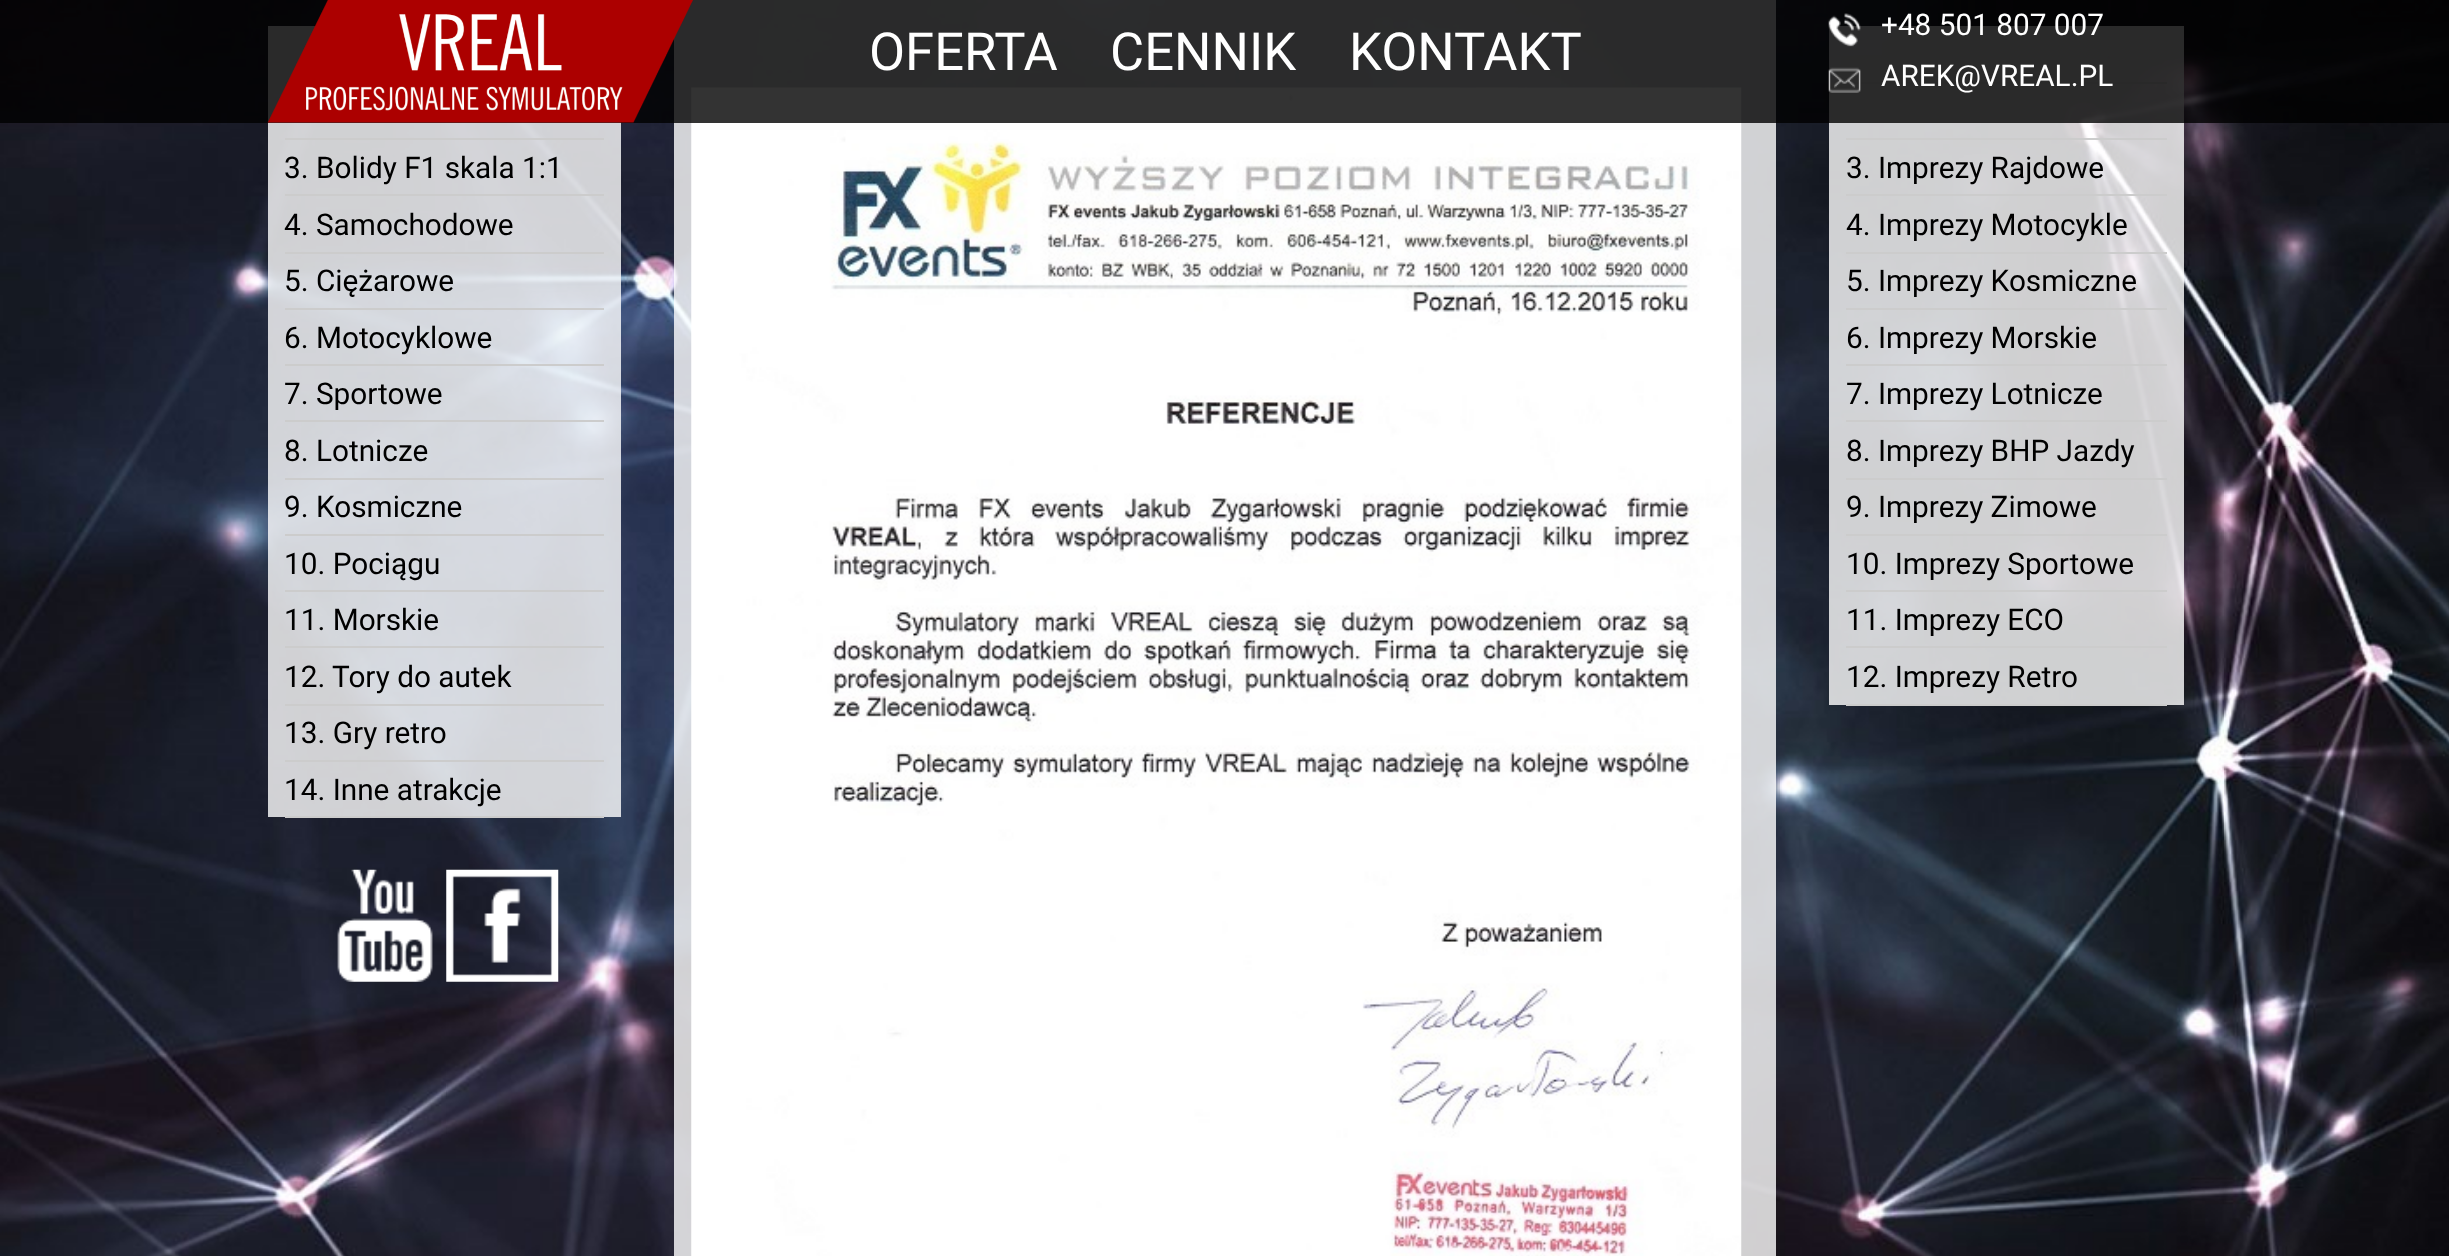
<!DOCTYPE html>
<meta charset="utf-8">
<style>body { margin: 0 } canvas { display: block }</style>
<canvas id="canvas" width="2449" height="1256"></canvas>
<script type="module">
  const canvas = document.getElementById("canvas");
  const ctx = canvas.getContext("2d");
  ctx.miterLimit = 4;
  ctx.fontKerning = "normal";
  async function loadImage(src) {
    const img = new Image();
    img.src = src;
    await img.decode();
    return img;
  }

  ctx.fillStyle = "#ffffff";
  ctx.fillRect(0, 0, 2449, 1256);
  ctx.drawImage(await loadImage("img1.png"), 0, 0, 2449, 1256);
  ctx.fillStyle = "rgba(255, 255, 255, 0.8)";
  ctx.fillRect(268, 26, 353, 791);
  ctx.fillStyle = "#cccccc";
  ctx.fillRect(285, 82, 4, 2);
  ctx.fillStyle = "rgba(255, 255, 255, 0.8)";
  ctx.fillRect(674, 0, 1102, 1256);
  ctx.drawImage(await loadImage("img7.png"), 691, 87, 1051, 1169);
  ctx.fillRect(1829, 26, 355, 679);
  ctx.fillStyle = "#cccccc";
  ctx.fillRect(1846, 82, 321, 2);
  ctx.fillStyle = "rgba(0, 0, 0, 0.8)";
  ctx.fillRect(0, 0, 2449, 123);
  ctx.drawImage(await loadImage("img2.png"), 267, 0, 426, 123);
  ctx.font = "52.5px Roboto";
  ctx.fillStyle = "#ffffff";
  ctx.fillText("OFERTA", 869, 70);
  ctx.fillText("CENNIK", 1110, 70);
  ctx.fillText("KONTAKT", 1349, 70);
  ctx.drawImage(await loadImage("img3.png"), 1828, 13, 33, 34);
  ctx.font = "29.75px Roboto";
  ctx.fillText("+48 501 807 007", 1881, 35);
  ctx.drawImage(await loadImage("img4.png"), 1828, 67, 33, 26);
  ctx.fillText("AREK@VREAL.PL", 1881, 86);
  ctx.fillStyle = "#cccccc";
  ctx.fillRect(285, 138, 319, 2);
  ctx.fillRect(285, 194, 319, 2);
  ctx.fillStyle = "#000000";
  ctx.fillText("3. Bolidy F1 skala 1:1", 284, 178);
  ctx.fillStyle = "#cccccc";
  ctx.fillRect(285, 252, 319, 2);
  ctx.fillStyle = "#000000";
  ctx.fillText("4. Samochodowe", 284, 235);
  ctx.fillStyle = "#cccccc";
  ctx.fillRect(285, 308, 319, 2);
  ctx.fillStyle = "#000000";
  ctx.fillText("5. Ciężarowe", 284, 291);
  ctx.fillStyle = "#cccccc";
  ctx.fillRect(285, 364, 319, 2);
  ctx.fillStyle = "#000000";
  ctx.fillText("6. Motocyklowe", 284, 348);
  ctx.fillStyle = "#cccccc";
  ctx.fillRect(285, 420, 319, 2);
  ctx.fillStyle = "#000000";
  ctx.fillText("7. Sportowe", 284, 404);
  ctx.fillStyle = "#cccccc";
  ctx.fillRect(285, 478, 319, 2);
  ctx.fillStyle = "#000000";
  ctx.fillText("8. Lotnicze", 284, 461);
  ctx.fillStyle = "#cccccc";
  ctx.fillRect(285, 534, 319, 2);
  ctx.fillStyle = "#000000";
  ctx.fillText("9. Kosmiczne", 284, 517);
  ctx.fillStyle = "#cccccc";
  ctx.fillRect(285, 590, 319, 2);
  ctx.fillStyle = "#000000";
  ctx.fillText("10. Pociągu", 284, 574);
  ctx.fillStyle = "#cccccc";
  ctx.fillRect(285, 646, 319, 2);
  ctx.fillStyle = "#000000";
  ctx.fillText("11. Morskie", 284, 630);
  ctx.fillStyle = "#cccccc";
  ctx.fillRect(285, 704, 319, 2);
  ctx.fillStyle = "#000000";
  ctx.fillText("12. Tory do autek", 284, 687);
  ctx.fillStyle = "#cccccc";
  ctx.fillRect(285, 760, 319, 2);
  ctx.fillStyle = "#000000";
  ctx.fillText("13. Gry retro", 284, 743);
  ctx.fillStyle = "#cccccc";
  ctx.fillRect(285, 816, 319, 2);
  ctx.fillStyle = "#000000";
  ctx.fillText("14. Inne atrakcje", 284, 800);
  ctx.drawImage(await loadImage("img5.png"), 337, 869, 96, 113);
  ctx.drawImage(await loadImage("img6.png"), 446, 869, 113, 113);
  ctx.fillStyle = "#cccccc";
  ctx.fillRect(1846, 138, 321, 2);
  ctx.fillRect(1846, 194, 321, 2);
  ctx.fillStyle = "#000000";
  ctx.fillText("3. Imprezy Rajdowe", 1846, 178);
  ctx.fillStyle = "#cccccc";
  ctx.fillRect(1846, 252, 321, 2);
  ctx.fillStyle = "#000000";
  ctx.fillText("4. Imprezy Motocykle", 1846, 235);
  ctx.fillStyle = "#cccccc";
  ctx.fillRect(1846, 308, 321, 2);
  ctx.fillStyle = "#000000";
  ctx.fillText("5. Imprezy Kosmiczne", 1846, 291);
  ctx.fillStyle = "#cccccc";
  ctx.fillRect(1846, 364, 321, 2);
  ctx.fillStyle = "#000000";
  ctx.fillText("6. Imprezy Morskie", 1846, 348);
  ctx.fillStyle = "#cccccc";
  ctx.fillRect(1846, 420, 321, 2);
  ctx.fillStyle = "#000000";
  ctx.fillText("7. Imprezy Lotnicze", 1846, 404);
  ctx.fillStyle = "#cccccc";
  ctx.fillRect(1846, 478, 321, 2);
  ctx.fillStyle = "#000000";
  ctx.fillText("8. Imprezy BHP Jazdy", 1846, 461);
  ctx.fillStyle = "#cccccc";
  ctx.fillRect(1846, 534, 321, 2);
  ctx.fillStyle = "#000000";
  ctx.fillText("9. Imprezy Zimowe", 1846, 517);
  ctx.fillStyle = "#cccccc";
  ctx.fillRect(1846, 590, 321, 2);
  ctx.fillStyle = "#000000";
  ctx.fillText("10. Imprezy Sportowe", 1846, 574);
  ctx.fillStyle = "#cccccc";
  ctx.fillRect(1846, 646, 321, 2);
  ctx.fillStyle = "#000000";
  ctx.fillText("11. Imprezy ECO", 1846, 630);
  ctx.fillStyle = "#cccccc";
  ctx.fillRect(1846, 704, 321, 2);
  ctx.fillStyle = "#000000";
  ctx.fillText("12. Imprezy Retro", 1846, 687);
</script>
